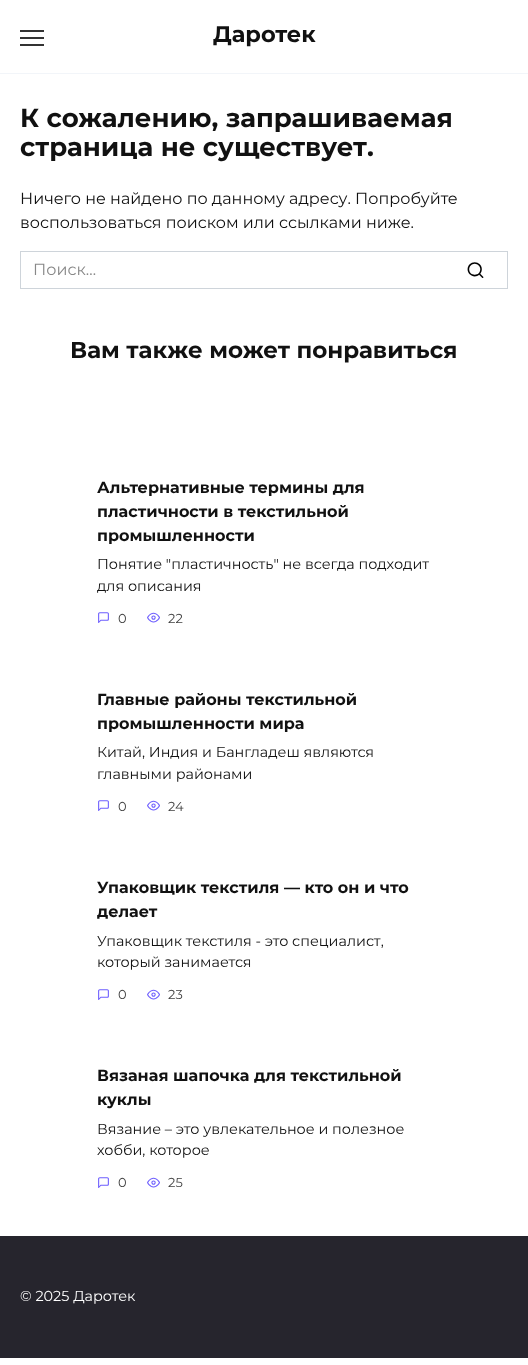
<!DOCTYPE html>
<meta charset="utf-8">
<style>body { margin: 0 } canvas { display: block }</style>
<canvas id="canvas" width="528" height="1365"></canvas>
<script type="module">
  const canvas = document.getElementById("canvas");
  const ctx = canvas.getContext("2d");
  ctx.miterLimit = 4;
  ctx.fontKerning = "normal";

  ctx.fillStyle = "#ffffff";
  ctx.fillRect(0, 0, 528, 1365);
  ctx.fillStyle = "#f2f5f9";
  ctx.fillRect(0, 73, 528, 1);
  ctx.fillStyle = "#333333";
  ctx.fillRect(20, 30, 24, 2);
  ctx.fillRect(20, 37, 24, 2);
  ctx.fillRect(20, 44, 24, 2);
  ctx.font = "bold 22.5px Montserrat";
  ctx.fillStyle = "#111111";
  ctx.fillText("Даротек", 213, 42);
  ctx.font = "bold 26px Montserrat";
  ctx.fillText("К сожалению, запрашиваемая", 20, 127);
  ctx.fillText("страница не существует.", 20, 156);
  ctx.font = "16px Montserrat";
  ctx.fillText("Ничего не найдено по данному адресу. Попробуйте", 20, 204);
  ctx.fillText("воспользоваться поиском или ссылками ниже.", 20, 228);
  ctx.strokeStyle = "#ced4da";
  ctx.strokeRect(20.5, 251.5, 487, 37);
  ctx.fillStyle = "#888888";
  ctx.fillText("Поиск…", 33, 275);
  ctx.font = "19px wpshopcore";
  ctx.fillStyle = "#000000";
  ctx.fillText("🔍", 466, 278);
  ctx.font = "bold 23px Montserrat";
  ctx.fillStyle = "#111111";
  ctx.fillText("Вам также может понравиться", 70, 358);
  ctx.font = "bold 16px Montserrat";
  ctx.fillText("Альтернативные термины для", 97, 493);
  ctx.fillText("пластичности в текстильной", 97, 517);
  ctx.fillText("промышленности", 97, 541);
  ctx.font = "14.4px Montserrat";
  ctx.fillText("Понятие \"пластичность\" не всегда подходит", 97, 569);
  ctx.fillText("для описания", 97, 591);
  ctx.font = "13px wpshopcore";
  ctx.fillStyle = "#7162fe";
  ctx.fillText("💬", 97, 623);
  ctx.font = "13px Montserrat";
  ctx.fillStyle = "#414141";
  ctx.fillText("0", 118, 623);
  ctx.font = "13px wpshopcore";
  ctx.fillStyle = "#7162fe";
  ctx.fillText("👀", 147, 623);
  ctx.font = "13px Montserrat";
  ctx.fillStyle = "#414141";
  ctx.fillText("22", 168, 623);
  ctx.font = "bold 16px Montserrat";
  ctx.fillStyle = "#111111";
  ctx.fillText("Главные районы текстильной", 97, 705);
  ctx.fillText("промышленности мира", 97, 729);
  ctx.font = "14.4px Montserrat";
  ctx.fillText("Китай, Индия и Бангладеш являются", 97, 757);
  ctx.fillText("главными районами", 97, 779);
  ctx.font = "13px wpshopcore";
  ctx.fillStyle = "#7162fe";
  ctx.fillText("💬", 97, 811);
  ctx.font = "13px Montserrat";
  ctx.fillStyle = "#414141";
  ctx.fillText("0", 118, 811);
  ctx.font = "13px wpshopcore";
  ctx.fillStyle = "#7162fe";
  ctx.fillText("👀", 147, 811);
  ctx.font = "13px Montserrat";
  ctx.fillStyle = "#414141";
  ctx.fillText("24", 168, 811);
  ctx.font = "bold 16px Montserrat";
  ctx.fillStyle = "#111111";
  ctx.fillText("Упаковщик текстиля — кто он и что", 97, 893);
  ctx.fillText("делает", 97, 917);
  ctx.font = "14.4px Montserrat";
  ctx.fillText("Упаковщик текстиля - это специалист,", 97, 946);
  ctx.fillText("который занимается", 97, 967);
  ctx.font = "13px wpshopcore";
  ctx.fillStyle = "#7162fe";
  ctx.fillText("💬", 97, 1000);
  ctx.font = "13px Montserrat";
  ctx.fillStyle = "#414141";
  ctx.fillText("0", 118, 999);
  ctx.font = "13px wpshopcore";
  ctx.fillStyle = "#7162fe";
  ctx.fillText("👀", 147, 1000);
  ctx.font = "13px Montserrat";
  ctx.fillStyle = "#414141";
  ctx.fillText("23", 168, 999);
  ctx.font = "bold 16px Montserrat";
  ctx.fillStyle = "#111111";
  ctx.fillText("Вязаная шапочка для текстильной", 97, 1081);
  ctx.fillText("куклы", 97, 1105);
  ctx.font = "14.4px Montserrat";
  ctx.fillText("Вязание – это увлекательное и полезное", 97, 1134);
  ctx.fillText("хобби, которое", 97, 1155);
  ctx.font = "13px wpshopcore";
  ctx.fillStyle = "#7162fe";
  ctx.fillText("💬", 97, 1188);
  ctx.font = "13px Montserrat";
  ctx.fillStyle = "#414141";
  ctx.fillText("0", 118, 1187);
  ctx.font = "13px wpshopcore";
  ctx.fillStyle = "#7162fe";
  ctx.fillText("👀", 147, 1188);
  ctx.font = "13px Montserrat";
  ctx.fillStyle = "#414141";
  ctx.fillText("25", 168, 1187);
  ctx.fillStyle = "#26252d";
  ctx.fillRect(0, 1236, 528, 122);
  ctx.font = "14.4px Montserrat";
  ctx.fillStyle = "#ffffff";
  ctx.fillText("© 2025 Даротек", 20, 1301);
</script>
